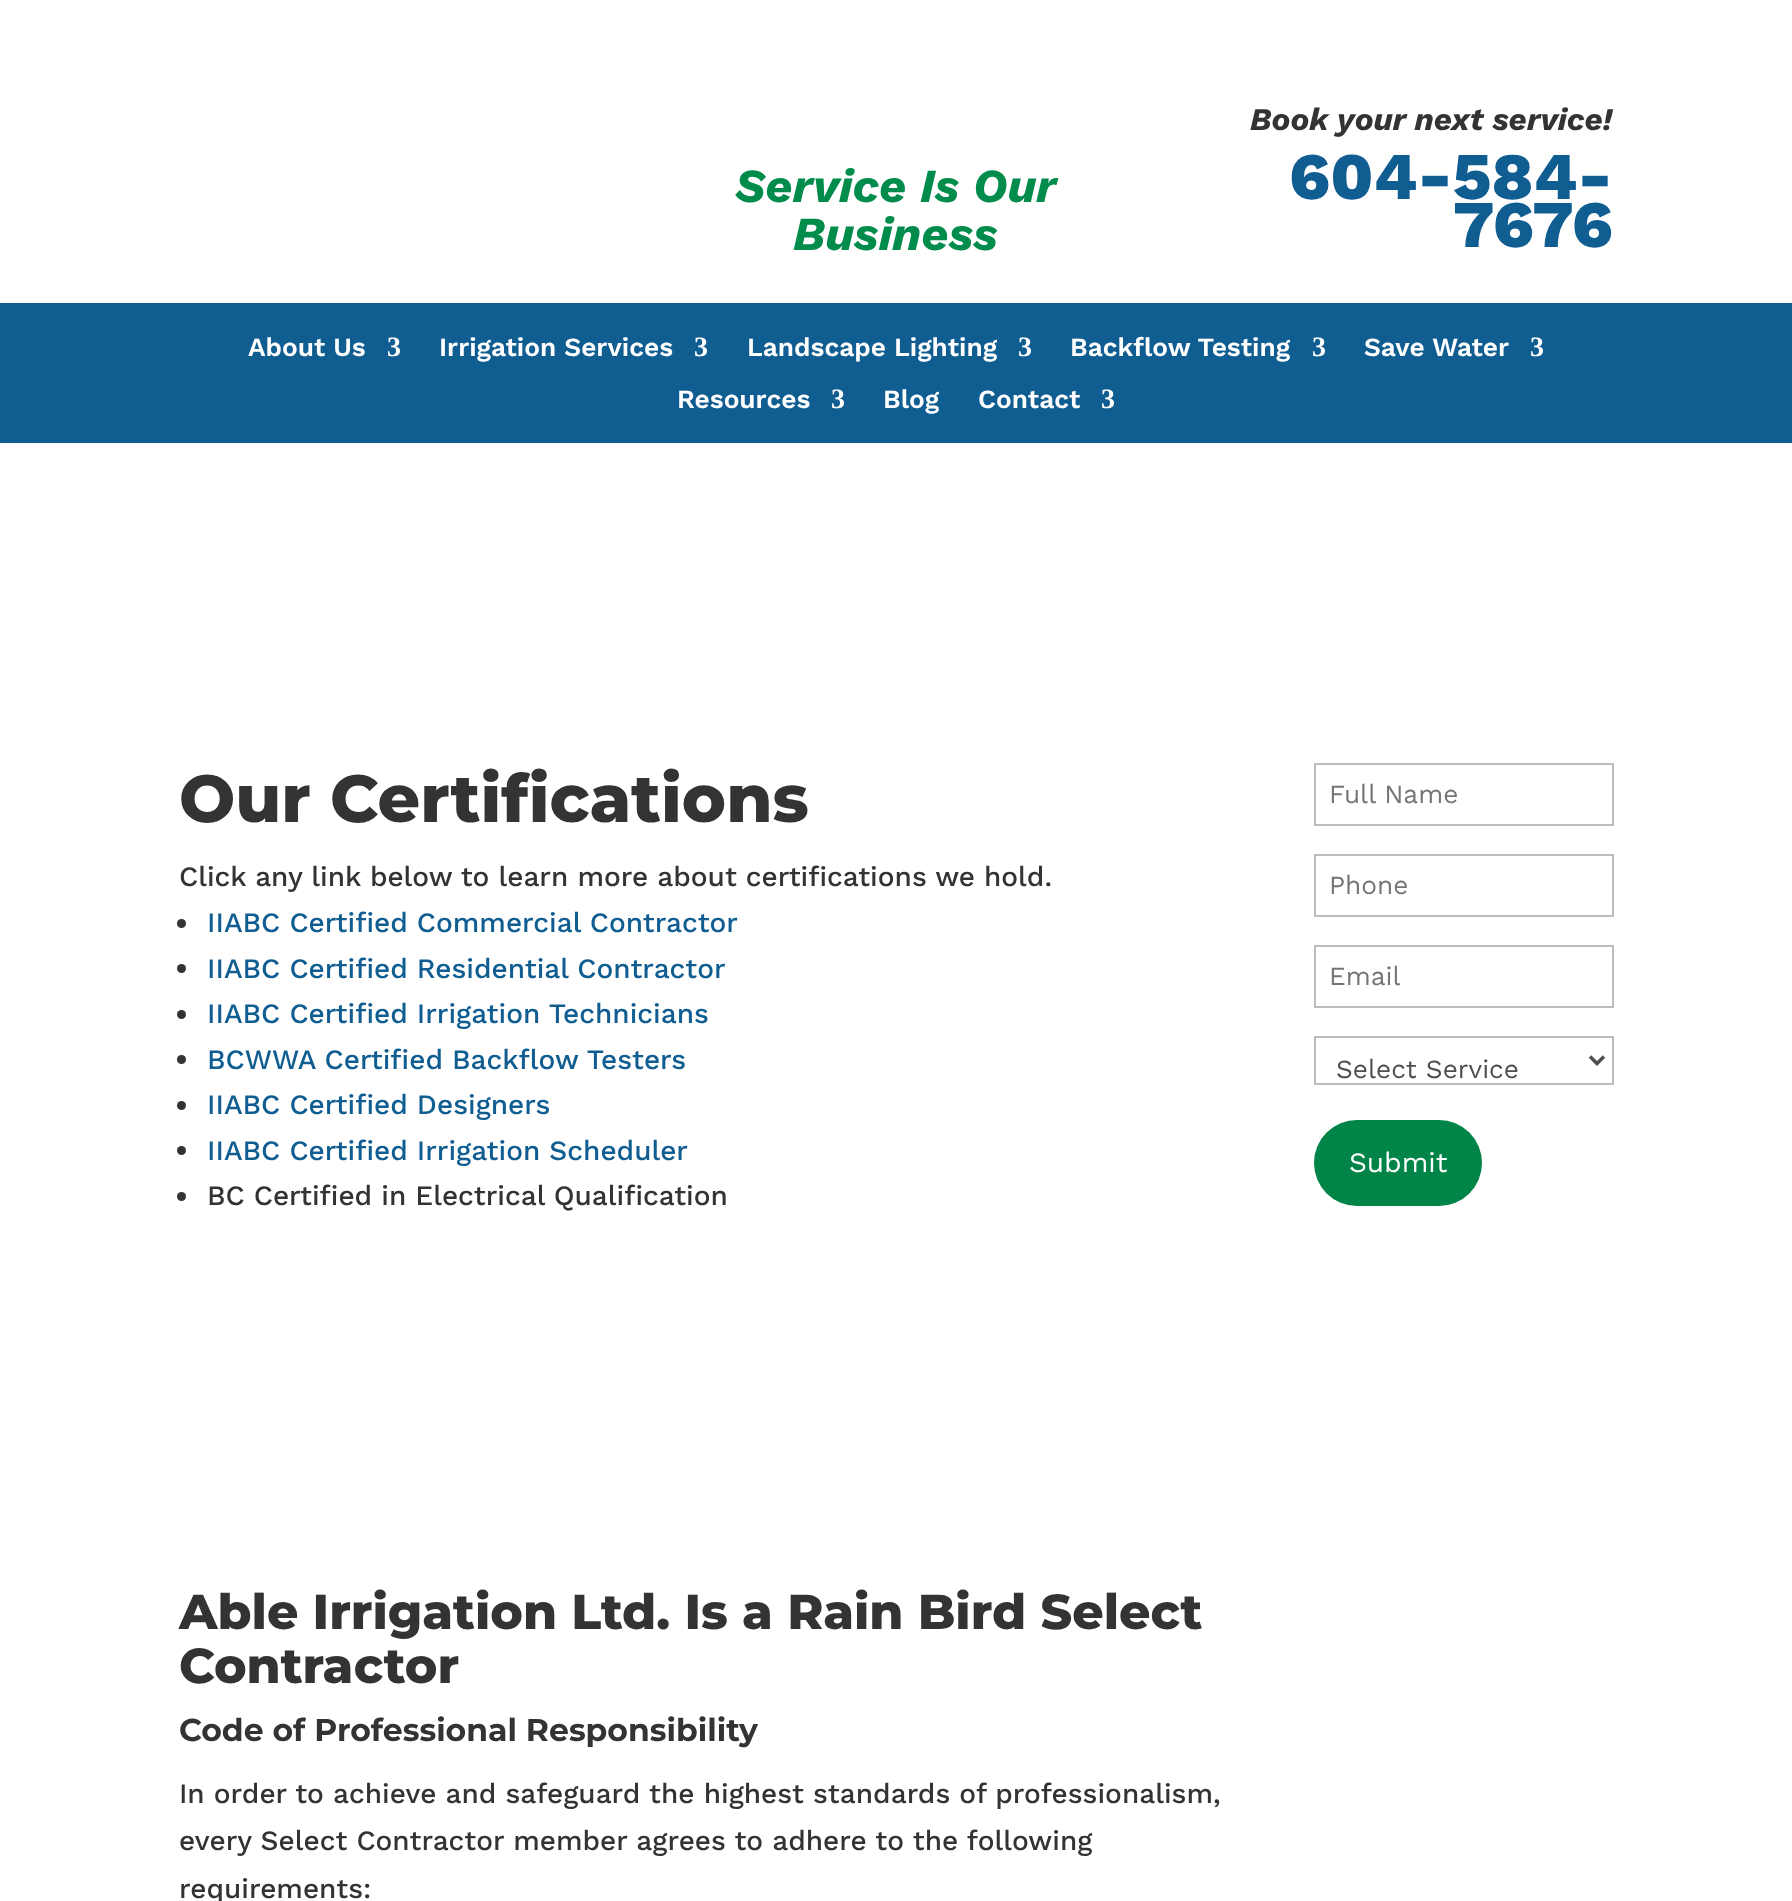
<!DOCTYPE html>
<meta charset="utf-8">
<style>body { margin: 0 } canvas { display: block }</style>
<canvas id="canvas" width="1792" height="1901"></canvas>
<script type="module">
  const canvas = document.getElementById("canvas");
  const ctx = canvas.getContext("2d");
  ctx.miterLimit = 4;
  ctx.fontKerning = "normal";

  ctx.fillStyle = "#ffffff";
  ctx.fillRect(0, 0, 1792, 1901);
  ctx.font = "italic bold 47.25px Work Sans";
  ctx.fillStyle = "#028c4c";
  ctx.fillText("Service Is Our", 735, 202);
  ctx.fillText("Business", 793, 250);
  ctx.font = "italic bold 31.5px Work Sans";
  ctx.fillStyle = "#333333";
  ctx.fillText("Book your next service!", 1250, 130);
  ctx.font = "800 66.5px Work Sans";
  ctx.fillStyle = "#105d92";
  ctx.fillText("604-584-", 1289, 199);
  ctx.fillText("7676", 1453, 247);
  ctx.fillRect(0, 303, 1792, 140);
  ctx.font = "600 26.25px Work Sans";
  ctx.fillStyle = "#ffffff";
  ctx.fillText("About Us", 248, 356);
  ctx.font = "bold 28px Liberation Serif";
  ctx.fillText("3", 387, 356);
  ctx.font = "600 26.25px Work Sans";
  ctx.fillText("Irrigation Services", 439, 356);
  ctx.font = "bold 28px Liberation Serif";
  ctx.fillText("3", 694, 356);
  ctx.font = "600 26.25px Work Sans";
  ctx.fillText("Landscape Lighting", 747, 356);
  ctx.font = "bold 28px Liberation Serif";
  ctx.fillText("3", 1018, 356);
  ctx.font = "600 26.25px Work Sans";
  ctx.fillText("Backflow Testing", 1070, 356);
  ctx.font = "bold 28px Liberation Serif";
  ctx.fillText("3", 1312, 356);
  ctx.font = "600 26.25px Work Sans";
  ctx.fillText("Save Water", 1364, 356);
  ctx.font = "bold 28px Liberation Serif";
  ctx.fillText("3", 1530, 356);
  ctx.font = "600 26.25px Work Sans";
  ctx.fillText("Resources", 677, 408);
  ctx.font = "bold 28px Liberation Serif";
  ctx.fillText("3", 831, 408);
  ctx.font = "600 26.25px Work Sans";
  ctx.fillText("Blog", 883, 408);
  ctx.fillText("Contact", 978, 408);
  ctx.font = "bold 28px Liberation Serif";
  ctx.fillText("3", 1101, 408);
  ctx.font = "100 66.5px Montserrat";
  ctx.fillStyle = "#333333";
  ctx.fillText("Our Certifications", 179, 822);
  ctx.font = "500 28px Work Sans";
  ctx.fillText("Click any link below to learn more about certifications we hold.", 179, 886);
  ctx.beginPath();
  ctx.arc(181.5, 923.5, 4.5, 0, Math.PI * 2);
  ctx.fill();
  ctx.fillStyle = "#105d92";
  ctx.fillText("IIABC Certified Commercial Contractor", 207, 932);
  ctx.fillStyle = "#333333";
  ctx.beginPath();
  ctx.arc(181.5, 968.5, 4.5, 0, Math.PI * 2);
  ctx.fill();
  ctx.fillStyle = "#105d92";
  ctx.fillText("IIABC Certified Residential Contractor", 207, 978);
  ctx.fillStyle = "#333333";
  ctx.beginPath();
  ctx.arc(181.5, 1014.5, 4.5, 0, Math.PI * 2);
  ctx.fill();
  ctx.fillStyle = "#105d92";
  ctx.fillText("IIABC Certified Irrigation Technicians", 207, 1023);
  ctx.fillStyle = "#333333";
  ctx.beginPath();
  ctx.arc(181.5, 1059.5, 4.5, 0, Math.PI * 2);
  ctx.fill();
  ctx.fillStyle = "#105d92";
  ctx.fillText("BCWWA Certified Backflow Testers", 207, 1069);
  ctx.fillStyle = "#333333";
  ctx.beginPath();
  ctx.arc(181.5, 1105.5, 4.5, 0, Math.PI * 2);
  ctx.fill();
  ctx.fillStyle = "#105d92";
  ctx.fillText("IIABC Certified Designers", 207, 1114);
  ctx.fillStyle = "#333333";
  ctx.beginPath();
  ctx.arc(181.5, 1150.5, 4.5, 0, Math.PI * 2);
  ctx.fill();
  ctx.fillStyle = "#105d92";
  ctx.fillText("IIABC Certified Irrigation Scheduler", 207, 1160);
  ctx.fillStyle = "#333333";
  ctx.beginPath();
  ctx.arc(181.5, 1196.5, 4.5, 0, Math.PI * 2);
  ctx.fill();
  ctx.fillText("BC Certified in Electrical Qualification", 207, 1205);
  ctx.font = "100 49px Montserrat";
  ctx.fillText("Able Irrigation Ltd. Is a Rain Bird Select", 179, 1629);
  ctx.fillText("Contractor", 179, 1683);
  ctx.font = "100 31.5px 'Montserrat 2'";
  ctx.fillText("Code of Professional Responsibility", 179, 1741);
  ctx.font = "500 28px Work Sans";
  ctx.fillText("In order to achieve and safeguard the highest standards of professionalism,", 179, 1803);
  ctx.fillText("every Select Contractor member agrees to adhere to the following", 179, 1850);
  ctx.fillText("requirements:", 179, 1898);
  ctx.strokeStyle = "#bbbbbb";
  ctx.lineWidth = 2;
  ctx.strokeRect(1315, 764, 298, 61);
  ctx.font = "26.25px Work Sans";
  ctx.fillStyle = "#757575";
  ctx.fillText("Full Name", 1329, 803);
  ctx.strokeRect(1315, 855, 298, 61);
  ctx.fillText("Phone", 1329, 894);
  ctx.strokeRect(1315, 946, 298, 61);
  ctx.fillText("Email", 1329, 985);
  ctx.strokeRect(1315, 1037, 298, 47);
  ctx.beginPath();
  ctx.moveTo(1590, 1056.5);
  ctx.lineTo(1597, 1063.5);
  ctx.lineTo(1604, 1056.5);
  ctx.strokeStyle = "#4e4e4e";
  ctx.lineWidth = 3.5;
  ctx.stroke();
  ctx.fillStyle = "#4e4e4e";
  ctx.fillText("Select Service", 1336, 1078);
  ctx.fillStyle = "#008447";
  ctx.beginPath();
  ctx.roundRect(1314, 1120, 168, 86, 43);
  ctx.fill();
  ctx.font = "28px Work Sans";
  ctx.fillStyle = "#ffffff";
  ctx.fillText("Submit", 1349, 1172);
</script>
